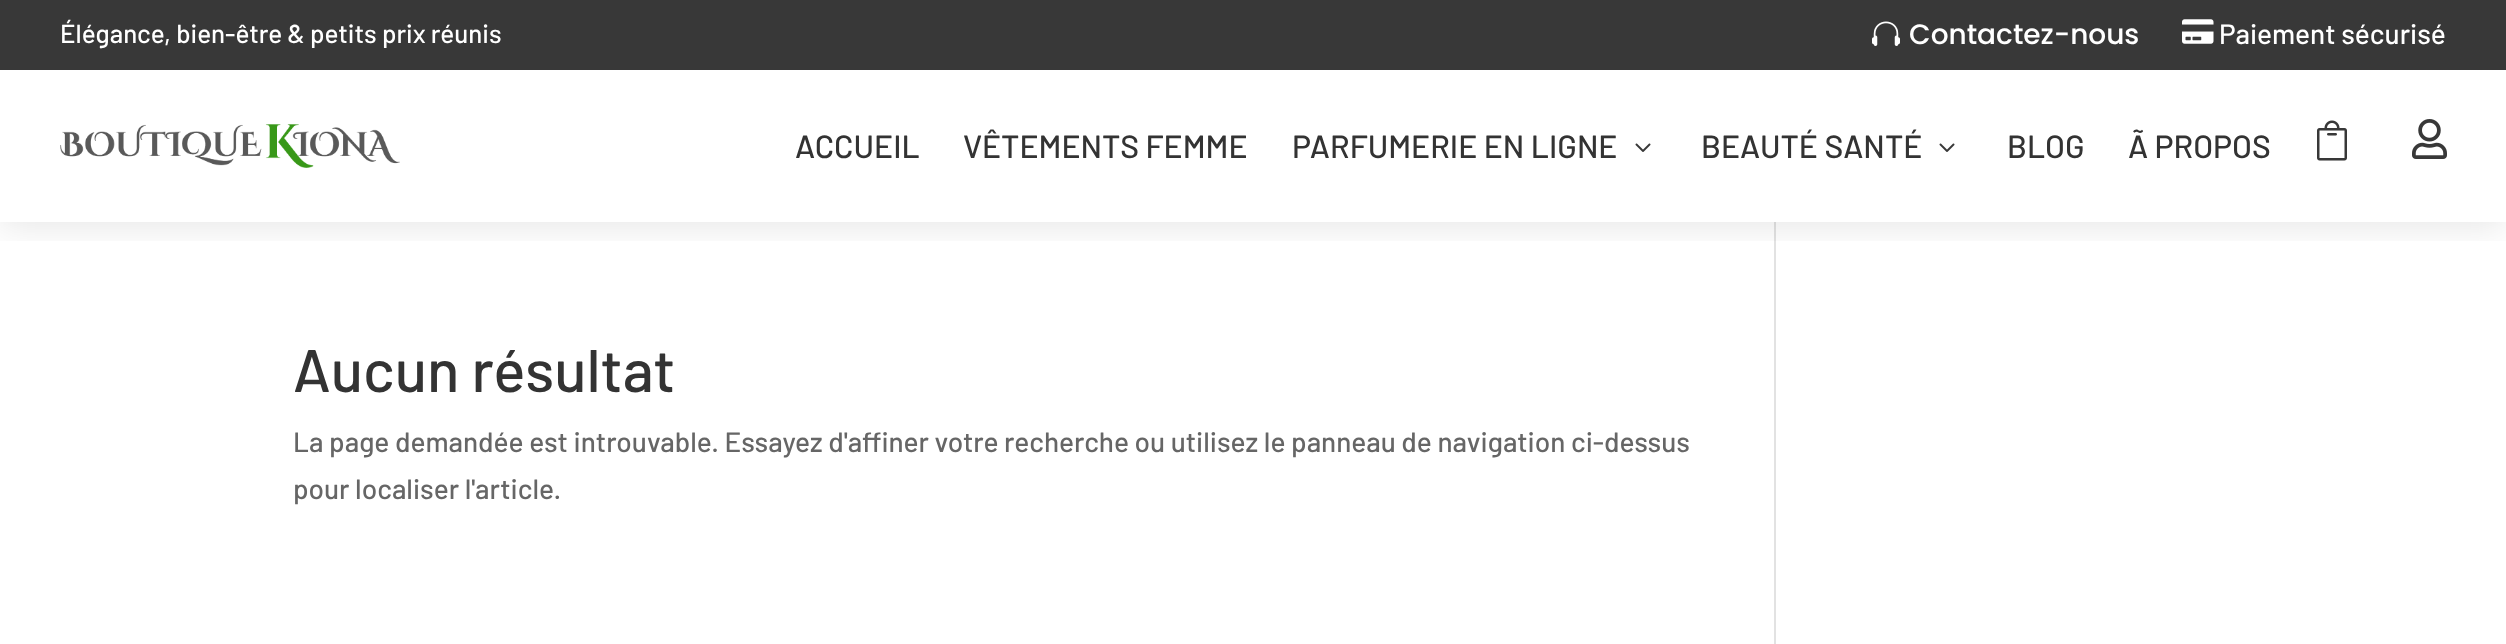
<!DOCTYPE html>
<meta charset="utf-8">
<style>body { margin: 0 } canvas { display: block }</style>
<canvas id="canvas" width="2506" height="644"></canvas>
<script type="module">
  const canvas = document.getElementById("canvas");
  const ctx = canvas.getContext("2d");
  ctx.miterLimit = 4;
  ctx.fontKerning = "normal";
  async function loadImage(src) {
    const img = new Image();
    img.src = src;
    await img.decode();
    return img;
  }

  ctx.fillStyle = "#ffffff";
  ctx.fillRect(0, 0, 2506, 644);
  ctx.fillStyle = "#e2e2e2";
  ctx.fillRect(1774, 222, 2, 422);
  ctx.save();
  ctx.beginPath();
  ctx.rect(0, 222, 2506, 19);
  ctx.clip();
  ctx.fillStyle = "rgba(0, 0, 0, 0.1)";
  ctx.filter = "blur(18px)";
  ctx.beginPath();
  ctx.rect(0, 4, 2506, 222);
  ctx.fill();
  ctx.filter = "none";
  ctx.restore();
  ctx.fillStyle = "#383838";
  ctx.fillRect(0, 0, 2506, 70);
  ctx.font = "500 26px Barlow";
  ctx.fillStyle = "#ffffff";
  ctx.fillText("Élégance, bien-être & petits prix réunis", 60, 43);
  ctx.drawImage(await loadImage("img1.png"), 1872, 21, 28, 25);
  ctx.font = "500 28px Poppins";
  ctx.fillText("Contactez-nous", 1909, 44);
  ctx.drawImage(await loadImage("img2.png"), 2182, 19, 32, 25);
  ctx.font = "500 28px Barlow";
  ctx.fillText("Paiement sécurisé", 2219, 44);
  ctx.drawImage(await loadImage("img3.png"), 60, 124, 340, 44);
  ctx.font = "500 32px Barlow";
  ctx.fillStyle = "#333333";
  ctx.fillText("ACCUEIL", 795, 158);
  ctx.fillText("VÊTEMENTS FEMME", 963, 158);
  ctx.fillText("PARFUMERIE EN LIGNE", 1292, 158);
  ctx.drawImage(await loadImage("img4.png"), 1635, 143, 16, 9);
  ctx.fillText("BEAUTÉ SANTÉ", 1701, 158);
  ctx.drawImage(await loadImage("img4.png"), 1939, 143, 16, 9);
  ctx.fillText("BLOG", 2007, 158);
  ctx.fillText("Ã PROPOS", 2128, 158);
  ctx.drawImage(await loadImage("img5.png"), 2317, 120, 30, 41);
  ctx.drawImage(await loadImage("img6.png"), 2412, 119, 35, 40);
  ctx.font = "500 60px Barlow";
  ctx.fillText("Aucun résultat", 293, 392);
  ctx.font = "500 28px Barlow";
  ctx.fillStyle = "#666666";
  ctx.fillText("La page demandée est introuvable. Essayez d'affiner votre recherche ou utilisez le panneau de navigation ci-dessus", 293, 452);
  ctx.fillText("pour localiser l'article.", 293, 499);
</script>
